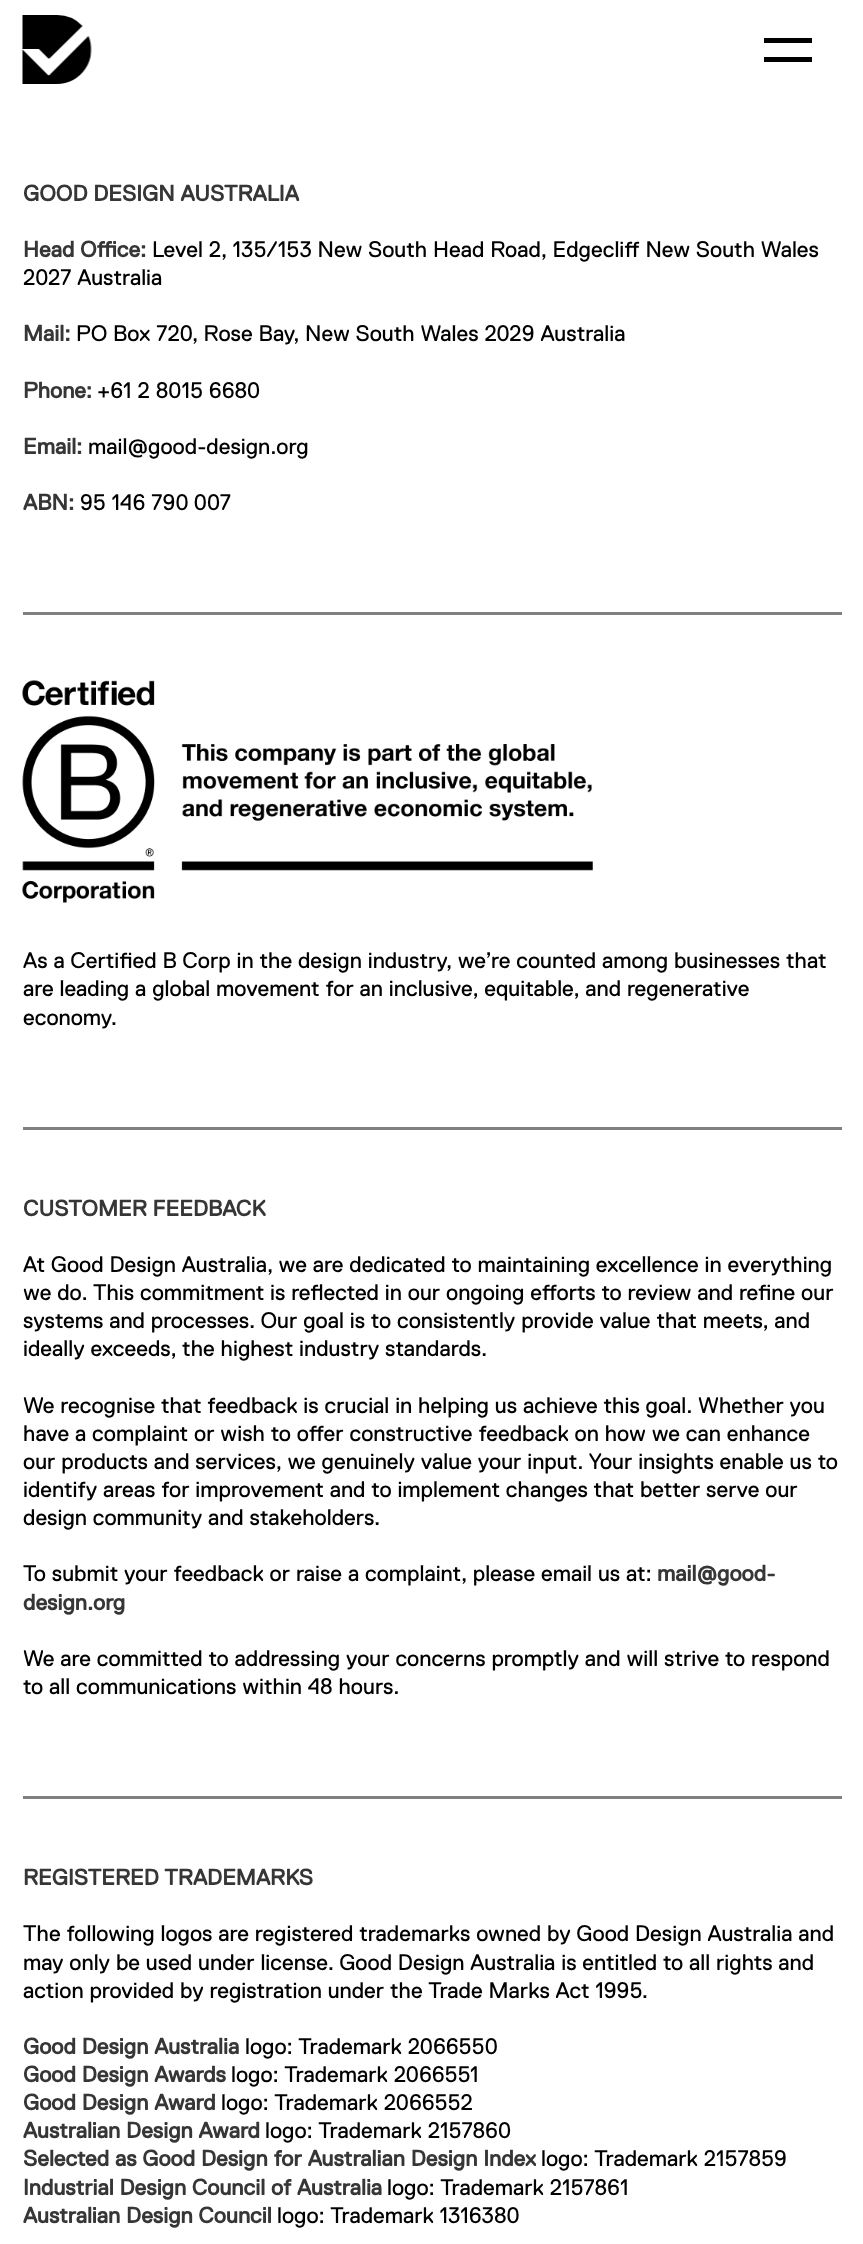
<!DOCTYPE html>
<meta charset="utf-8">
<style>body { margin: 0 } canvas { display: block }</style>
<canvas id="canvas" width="863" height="2244"></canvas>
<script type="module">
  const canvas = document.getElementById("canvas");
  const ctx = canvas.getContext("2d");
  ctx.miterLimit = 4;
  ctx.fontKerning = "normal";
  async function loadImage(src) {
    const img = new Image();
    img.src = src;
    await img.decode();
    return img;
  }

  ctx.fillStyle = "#ffffff";
  ctx.fillRect(0, 0, 863, 2244);
  ctx.drawImage(await loadImage("img1.png"), 22, 15, 70, 69);
  ctx.fillStyle = "#000000";
  ctx.fillRect(764, 38, 48, 5);
  ctx.fillRect(764, 57, 48, 5);
  ctx.font = "bold 22.5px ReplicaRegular";
  ctx.fillStyle = "#363636";
  ctx.fillText("GOOD DESIGN AUSTRALIA", 23, 201);
  ctx.fillText("Head Office:", 23, 257);
  ctx.font = "22.5px ReplicaRegular";
  ctx.fillStyle = "#000000";
  ctx.fillText("Level 2, 135/153 New South Head Road, Edgecliff New South Wales", 152, 257);
  ctx.fillText("2027 Australia", 23, 285);
  ctx.font = "bold 22.5px ReplicaRegular";
  ctx.fillStyle = "#363636";
  ctx.fillText("Mail:", 23, 341);
  ctx.font = "22.5px ReplicaRegular";
  ctx.fillStyle = "#000000";
  ctx.fillText("PO Box 720, Rose Bay, New South Wales 2029 Australia", 76, 341);
  ctx.font = "bold 22.5px ReplicaRegular";
  ctx.fillStyle = "#363636";
  ctx.fillText("Phone:", 23, 398);
  ctx.font = "22.5px ReplicaRegular";
  ctx.fillStyle = "#000000";
  ctx.fillText("+61 2 8015 6680", 97, 398);
  ctx.font = "bold 22.5px ReplicaRegular";
  ctx.fillStyle = "#363636";
  ctx.fillText("Email:", 23, 454);
  ctx.font = "22.5px ReplicaRegular";
  ctx.fillStyle = "#000000";
  ctx.fillText("mail@good-design.org", 88, 454);
  ctx.font = "bold 22.5px ReplicaRegular";
  ctx.fillStyle = "#363636";
  ctx.fillText("ABN:", 23, 510);
  ctx.font = "22.5px ReplicaRegular";
  ctx.fillStyle = "#000000";
  ctx.fillText("95 146 790 007", 80, 510);
  ctx.fillStyle = "#808080";
  ctx.fillRect(23, 612, 819, 3);
  ctx.drawImage(await loadImage("img2.png"), 22, 680, 571, 223);
  ctx.fillStyle = "#000000";
  ctx.fillText("As a Certified B Corp in the design industry, we’re counted among businesses that", 23, 968);
  ctx.fillText("are leading a global movement for an inclusive, equitable, and regenerative", 23, 996);
  ctx.fillText("economy.", 23, 1025);
  ctx.fillStyle = "#808080";
  ctx.fillRect(23, 1127, 819, 3);
  ctx.font = "bold 22.5px ReplicaRegular";
  ctx.fillStyle = "#363636";
  ctx.fillText("CUSTOMER FEEDBACK", 23, 1216);
  ctx.font = "22.5px ReplicaRegular";
  ctx.fillStyle = "#000000";
  ctx.fillText("At Good Design Australia, we are dedicated to maintaining excellence in everything", 23, 1272);
  ctx.fillText("we do. This commitment is reflected in our ongoing efforts to review and refine our", 23, 1300);
  ctx.fillText("systems and processes. Our goal is to consistently provide value that meets, and", 23, 1328);
  ctx.fillText("ideally exceeds, the highest industry standards.", 23, 1356);
  ctx.fillText("We recognise that feedback is crucial in helping us achieve this goal. Whether you", 23, 1413);
  ctx.fillText("have a complaint or wish to offer constructive feedback on how we can enhance", 23, 1441);
  ctx.fillText("our products and services, we genuinely value your input. Your insights enable us to", 23, 1469);
  ctx.fillText("identify areas for improvement and to implement changes that better serve our", 23, 1497);
  ctx.fillText("design community and stakeholders.", 23, 1525);
  ctx.fillText("To submit your feedback or raise a complaint, please email us at:", 23, 1581);
  ctx.font = "bold 22.5px ReplicaRegular";
  ctx.fillStyle = "#363636";
  ctx.fillText("mail@good-", 657, 1581);
  ctx.fillText("design.org", 23, 1610);
  ctx.font = "22.5px ReplicaRegular";
  ctx.fillStyle = "#000000";
  ctx.fillText("We are committed to addressing your concerns promptly and will strive to respond", 23, 1666);
  ctx.fillText("to all communications within 48 hours.", 23, 1694);
  ctx.fillStyle = "#808080";
  ctx.fillRect(23, 1796, 819, 3);
  ctx.font = "bold 22.5px ReplicaRegular";
  ctx.fillStyle = "#363636";
  ctx.fillText("REGISTERED TRADEMARKS", 23, 1885);
  ctx.font = "22.5px ReplicaRegular";
  ctx.fillStyle = "#000000";
  ctx.fillText("The following logos are registered trademarks owned by Good Design Australia and", 23, 1941);
  ctx.fillText("may only be used under license. Good Design Australia is entitled to all rights and", 23, 1970);
  ctx.fillText("action provided by registration under the Trade Marks Act 1995.", 23, 1998);
  ctx.font = "bold 22.5px ReplicaRegular";
  ctx.fillStyle = "#363636";
  ctx.fillText("Good Design Australia", 23, 2054);
  ctx.font = "22.5px ReplicaRegular";
  ctx.fillStyle = "#000000";
  ctx.fillText("logo: Trademark 2066550", 245, 2054);
  ctx.font = "bold 22.5px ReplicaRegular";
  ctx.fillStyle = "#363636";
  ctx.fillText("Good Design Awards", 23, 2082);
  ctx.font = "22.5px ReplicaRegular";
  ctx.fillStyle = "#000000";
  ctx.fillText("logo: Trademark 2066551", 231, 2082);
  ctx.font = "bold 22.5px ReplicaRegular";
  ctx.fillStyle = "#363636";
  ctx.fillText("Good Design Award", 23, 2110);
  ctx.font = "22.5px ReplicaRegular";
  ctx.fillStyle = "#000000";
  ctx.fillText("logo: Trademark 2066552", 221, 2110);
  ctx.font = "bold 22.5px ReplicaRegular";
  ctx.fillStyle = "#363636";
  ctx.fillText("Australian Design Award", 23, 2138);
  ctx.font = "22.5px ReplicaRegular";
  ctx.fillStyle = "#000000";
  ctx.fillText("logo: Trademark 2157860", 265, 2138);
  ctx.font = "bold 22.5px ReplicaRegular";
  ctx.fillStyle = "#363636";
  ctx.fillText("Selected as Good Design for Australian Design Index", 23, 2166);
  ctx.font = "22.5px ReplicaRegular";
  ctx.fillStyle = "#000000";
  ctx.fillText("logo: Trademark 2157859", 541, 2166);
  ctx.font = "bold 22.5px ReplicaRegular";
  ctx.fillStyle = "#363636";
  ctx.fillText("Industrial Design Council of Australia", 23, 2195);
  ctx.font = "22.5px ReplicaRegular";
  ctx.fillStyle = "#000000";
  ctx.fillText("logo: Trademark 2157861", 387, 2195);
  ctx.font = "bold 22.5px ReplicaRegular";
  ctx.fillStyle = "#363636";
  ctx.fillText("Australian Design Council", 23, 2223);
  ctx.font = "22.5px ReplicaRegular";
  ctx.fillStyle = "#000000";
  ctx.fillText("logo: Trademark 1316380", 277, 2223);
</script>
